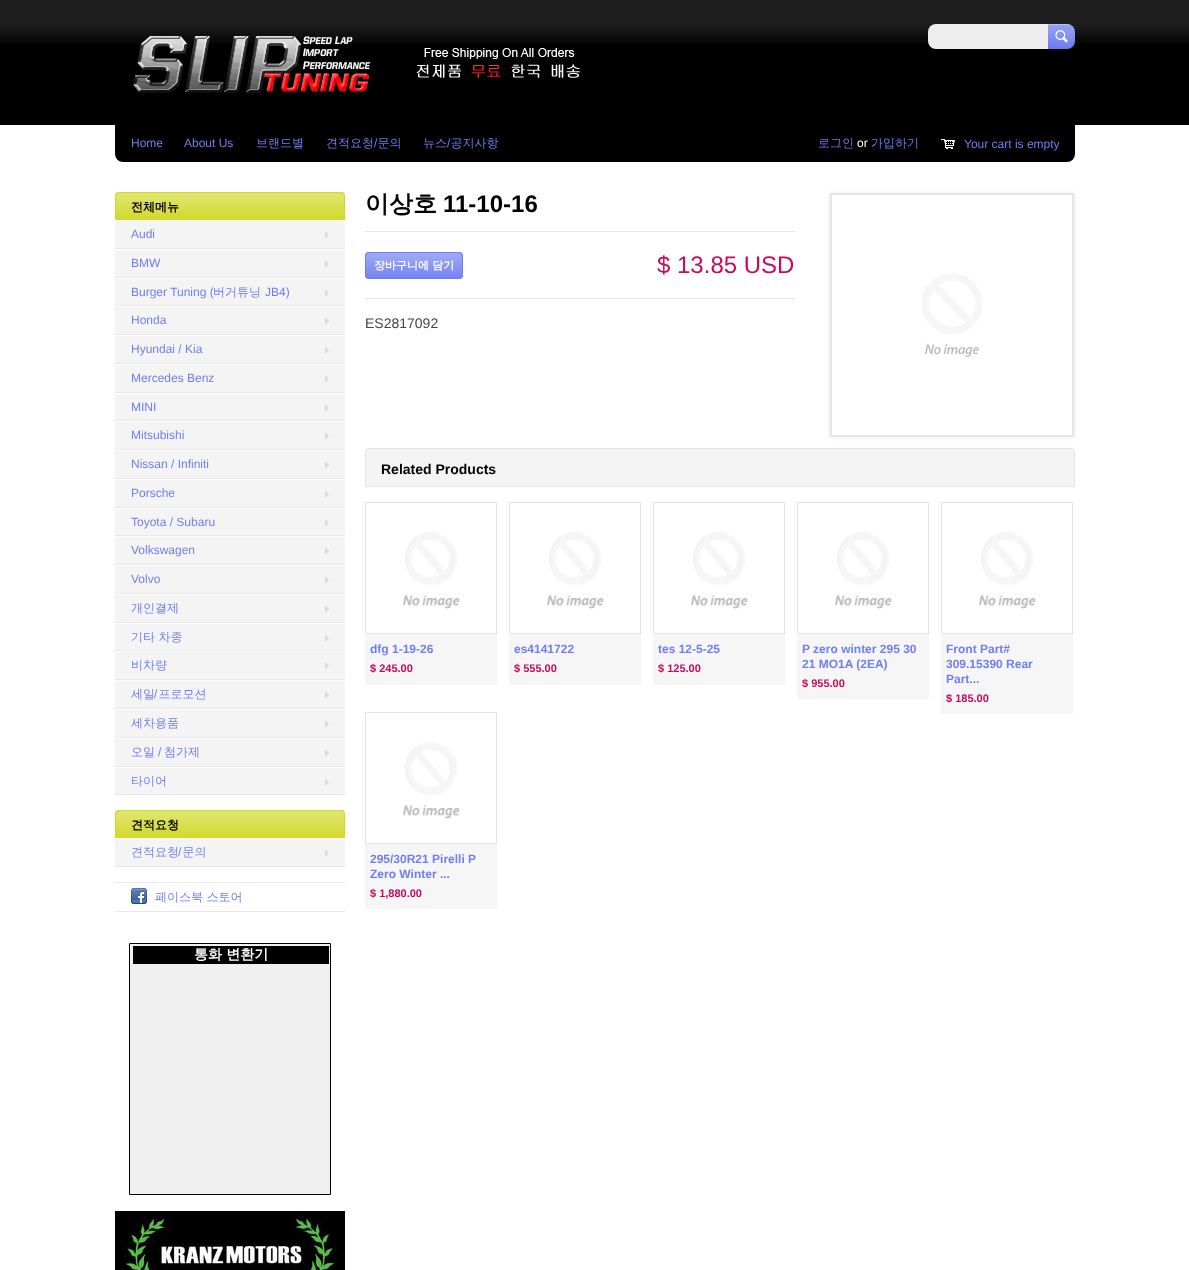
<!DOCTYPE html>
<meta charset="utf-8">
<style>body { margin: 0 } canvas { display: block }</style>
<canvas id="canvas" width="1189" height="1270"></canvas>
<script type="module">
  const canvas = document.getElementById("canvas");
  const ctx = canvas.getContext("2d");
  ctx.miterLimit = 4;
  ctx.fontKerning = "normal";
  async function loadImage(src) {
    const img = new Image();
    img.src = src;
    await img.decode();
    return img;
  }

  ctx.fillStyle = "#000000";
  ctx.fillRect(0, 0, 1189, 1270);
  ctx.drawImage(await loadImage("img1.png"), 0, 0, 1189, 44);
  ctx.drawImage(await loadImage("img2.png"), 133, 36, 447, 57);
  ctx.fillStyle = "#eeeeee";
  ctx.beginPath();
  ctx.roundRect(928, 24, 120, 25, [8, 0, 0, 8]);
  ctx.fill();
  ctx.fillStyle = "#6f7ef2";
  ctx.beginPath();
  ctx.roundRect(1048, 24, 27, 25, [0, 8, 8, 0]);
  ctx.fill();
  ctx.drawImage(await loadImage("img3.png"), 1048, 24, 27, 22);
  ctx.fillStyle = "#ffffff";
  ctx.fillRect(0, 125, 1189, 1145);
  ctx.fillStyle = "#000000";
  ctx.beginPath();
  ctx.roundRect(115, 125, 960, 37, [0, 0, 8, 8]);
  ctx.fill();
  ctx.font = "12px Liberation Sans";
  ctx.fillStyle = "#6f7ef2";
  ctx.fillText("Home", 131, 147);
  ctx.fillText("About Us", 184, 147);
  ctx.font = "500 12px WenQuanYi Zen Hei";
  ctx.fillText("브랜드별", 256, 147);
  ctx.fillText("견적요청 문의", 326, 147);
  ctx.font = "12px Liberation Sans";
  ctx.fillText("/", 374, 147);
  ctx.font = "500 12px WenQuanYi Zen Hei";
  ctx.fillText("뉴스 공지사항", 423, 147);
  ctx.font = "12px Liberation Sans";
  ctx.fillText("/", 447, 147);
  ctx.font = "500 12px WenQuanYi Zen Hei";
  ctx.fillText("로그인", 818, 147);
  ctx.font = "12px Liberation Sans";
  ctx.fillStyle = "#ffffff";
  ctx.fillText("or", 857, 147);
  ctx.font = "500 12px WenQuanYi Zen Hei";
  ctx.fillStyle = "#6f7ef2";
  ctx.fillText("가입하기", 871, 147);
  ctx.drawImage(await loadImage("img4.png"), 940, 139, 16, 10);
  ctx.font = "12px Liberation Sans";
  ctx.fillText("Your cart is empty", 964, 148);
  ctx.fillStyle = "#d0d927";
  ctx.beginPath();
  ctx.roundRect(115, 192, 230, 28, [4, 4, 0, 0]);
  ctx.fill();
  ctx.drawImage(await loadImage("img5.png"), 115, 193, 230, 26);
  ctx.beginPath();
  ctx.roundRect(115.5, 192.5, 229, 27, [3.5, 3.5, 0, 0]);
  ctx.strokeStyle = "#d0d927";
  ctx.stroke();
  ctx.font = "bold 12px WenQuanYi Zen Hei";
  ctx.fillStyle = "#000000";
  ctx.fillText("전체메뉴", 131, 211);
  ctx.fillStyle = "#f4f4f4";
  ctx.fillRect(115, 221, 230, 27);
  ctx.fillStyle = "#e8e8e8";
  ctx.fillRect(115, 248, 230, 1);
  ctx.font = "12px Liberation Sans";
  ctx.fillStyle = "#6f7ef2";
  ctx.fillText("Audi", 131, 238);
  ctx.fillStyle = "#dbdbdb";
  ctx.beginPath();
  ctx.moveTo(325, 239);
  ctx.lineTo(325, 231);
  ctx.lineTo(329, 235);
  ctx.closePath();
  ctx.fill();
  ctx.fillStyle = "#f4f4f4";
  ctx.fillRect(115, 250, 230, 27);
  ctx.fillStyle = "#e8e8e8";
  ctx.fillRect(115, 277, 230, 1);
  ctx.fillStyle = "#6f7ef2";
  ctx.fillText("BMW", 131, 267);
  ctx.fillStyle = "#dbdbdb";
  ctx.beginPath();
  ctx.moveTo(325, 268);
  ctx.lineTo(325, 260);
  ctx.lineTo(329, 264);
  ctx.closePath();
  ctx.fill();
  ctx.fillStyle = "#f4f4f4";
  ctx.fillRect(115, 279, 230, 26);
  ctx.fillStyle = "#e8e8e8";
  ctx.fillRect(115, 305, 230, 1);
  ctx.fillStyle = "#6f7ef2";
  ctx.fillText("Burger Tuning (", 131, 296);
  ctx.font = "500 12px WenQuanYi Zen Hei";
  ctx.fillText("버거튜닝", 213, 296);
  ctx.font = "12px Liberation Sans";
  ctx.fillText("JB4)", 265, 296);
  ctx.fillStyle = "#dbdbdb";
  ctx.beginPath();
  ctx.moveTo(325, 297);
  ctx.lineTo(325, 289);
  ctx.lineTo(329, 293);
  ctx.closePath();
  ctx.fill();
  ctx.fillStyle = "#f4f4f4";
  ctx.fillRect(115, 307, 230, 27);
  ctx.fillStyle = "#e8e8e8";
  ctx.fillRect(115, 334, 230, 1);
  ctx.fillStyle = "#6f7ef2";
  ctx.fillText("Honda", 131, 324);
  ctx.fillStyle = "#dbdbdb";
  ctx.beginPath();
  ctx.moveTo(325, 325);
  ctx.lineTo(325, 317);
  ctx.lineTo(329, 321);
  ctx.closePath();
  ctx.fill();
  ctx.fillStyle = "#f4f4f4";
  ctx.fillRect(115, 336, 230, 27);
  ctx.fillStyle = "#e8e8e8";
  ctx.fillRect(115, 363, 230, 1);
  ctx.fillStyle = "#6f7ef2";
  ctx.fillText("Hyundai / Kia", 131, 353);
  ctx.fillStyle = "#dbdbdb";
  ctx.beginPath();
  ctx.moveTo(325, 354);
  ctx.lineTo(325, 346);
  ctx.lineTo(329, 350);
  ctx.closePath();
  ctx.fill();
  ctx.fillStyle = "#f4f4f4";
  ctx.fillRect(115, 365, 230, 27);
  ctx.fillStyle = "#e8e8e8";
  ctx.fillRect(115, 392, 230, 1);
  ctx.fillStyle = "#6f7ef2";
  ctx.fillText("Mercedes Benz", 131, 382);
  ctx.fillStyle = "#dbdbdb";
  ctx.beginPath();
  ctx.moveTo(325, 383);
  ctx.lineTo(325, 375);
  ctx.lineTo(329, 379);
  ctx.closePath();
  ctx.fill();
  ctx.fillStyle = "#f4f4f4";
  ctx.fillRect(115, 394, 230, 26);
  ctx.fillStyle = "#e8e8e8";
  ctx.fillRect(115, 420, 230, 1);
  ctx.fillStyle = "#6f7ef2";
  ctx.fillText("MINI", 131, 411);
  ctx.fillStyle = "#dbdbdb";
  ctx.beginPath();
  ctx.moveTo(325, 412);
  ctx.lineTo(325, 404);
  ctx.lineTo(329, 408);
  ctx.closePath();
  ctx.fill();
  ctx.fillStyle = "#f4f4f4";
  ctx.fillRect(115, 422, 230, 27);
  ctx.fillStyle = "#e8e8e8";
  ctx.fillRect(115, 449, 230, 1);
  ctx.fillStyle = "#6f7ef2";
  ctx.fillText("Mitsubishi", 131, 439);
  ctx.fillStyle = "#dbdbdb";
  ctx.beginPath();
  ctx.moveTo(325, 440);
  ctx.lineTo(325, 432);
  ctx.lineTo(329, 436);
  ctx.closePath();
  ctx.fill();
  ctx.fillStyle = "#f4f4f4";
  ctx.fillRect(115, 451, 230, 27);
  ctx.fillStyle = "#e8e8e8";
  ctx.fillRect(115, 478, 230, 1);
  ctx.fillStyle = "#6f7ef2";
  ctx.fillText("Nissan / Infiniti", 131, 468);
  ctx.fillStyle = "#dbdbdb";
  ctx.beginPath();
  ctx.moveTo(325, 469);
  ctx.lineTo(325, 461);
  ctx.lineTo(329, 465);
  ctx.closePath();
  ctx.fill();
  ctx.fillStyle = "#f4f4f4";
  ctx.fillRect(115, 480, 230, 27);
  ctx.fillStyle = "#e8e8e8";
  ctx.fillRect(115, 507, 230, 1);
  ctx.fillStyle = "#6f7ef2";
  ctx.fillText("Porsche", 131, 497);
  ctx.fillStyle = "#dbdbdb";
  ctx.beginPath();
  ctx.moveTo(325, 498);
  ctx.lineTo(325, 490);
  ctx.lineTo(329, 494);
  ctx.closePath();
  ctx.fill();
  ctx.fillStyle = "#f4f4f4";
  ctx.fillRect(115, 509, 230, 26);
  ctx.fillStyle = "#e8e8e8";
  ctx.fillRect(115, 535, 230, 1);
  ctx.fillStyle = "#6f7ef2";
  ctx.fillText("Toyota / Subaru", 131, 526);
  ctx.fillStyle = "#dbdbdb";
  ctx.beginPath();
  ctx.moveTo(325, 527);
  ctx.lineTo(325, 519);
  ctx.lineTo(329, 523);
  ctx.closePath();
  ctx.fill();
  ctx.fillStyle = "#f4f4f4";
  ctx.fillRect(115, 537, 230, 27);
  ctx.fillStyle = "#e8e8e8";
  ctx.fillRect(115, 564, 230, 1);
  ctx.fillStyle = "#6f7ef2";
  ctx.fillText("Volkswagen", 131, 554);
  ctx.fillStyle = "#dbdbdb";
  ctx.beginPath();
  ctx.moveTo(325, 555);
  ctx.lineTo(325, 547);
  ctx.lineTo(329, 551);
  ctx.closePath();
  ctx.fill();
  ctx.fillStyle = "#f4f4f4";
  ctx.fillRect(115, 566, 230, 27);
  ctx.fillStyle = "#e8e8e8";
  ctx.fillRect(115, 593, 230, 1);
  ctx.fillStyle = "#6f7ef2";
  ctx.fillText("Volvo", 131, 583);
  ctx.fillStyle = "#dbdbdb";
  ctx.beginPath();
  ctx.moveTo(325, 584);
  ctx.lineTo(325, 576);
  ctx.lineTo(329, 580);
  ctx.closePath();
  ctx.fill();
  ctx.fillStyle = "#f4f4f4";
  ctx.fillRect(115, 595, 230, 27);
  ctx.fillStyle = "#e8e8e8";
  ctx.fillRect(115, 622, 230, 1);
  ctx.font = "500 12px WenQuanYi Zen Hei";
  ctx.fillStyle = "#6f7ef2";
  ctx.fillText("개인결제", 131, 612);
  ctx.fillStyle = "#dbdbdb";
  ctx.beginPath();
  ctx.moveTo(325, 613);
  ctx.lineTo(325, 605);
  ctx.lineTo(329, 609);
  ctx.closePath();
  ctx.fill();
  ctx.fillStyle = "#f4f4f4";
  ctx.fillRect(115, 624, 230, 26);
  ctx.fillStyle = "#e8e8e8";
  ctx.fillRect(115, 650, 230, 1);
  ctx.fillStyle = "#6f7ef2";
  ctx.fillText("기타 차종", 131, 641);
  ctx.fillStyle = "#dbdbdb";
  ctx.beginPath();
  ctx.moveTo(325, 642);
  ctx.lineTo(325, 634);
  ctx.lineTo(329, 638);
  ctx.closePath();
  ctx.fill();
  ctx.fillStyle = "#f4f4f4";
  ctx.fillRect(115, 652, 230, 27);
  ctx.fillStyle = "#e8e8e8";
  ctx.fillRect(115, 679, 230, 1);
  ctx.fillStyle = "#6f7ef2";
  ctx.fillText("비차량", 131, 669);
  ctx.fillStyle = "#dbdbdb";
  ctx.beginPath();
  ctx.moveTo(325, 670);
  ctx.lineTo(325, 662);
  ctx.lineTo(329, 666);
  ctx.closePath();
  ctx.fill();
  ctx.fillStyle = "#f4f4f4";
  ctx.fillRect(115, 681, 230, 27);
  ctx.fillStyle = "#e8e8e8";
  ctx.fillRect(115, 708, 230, 1);
  ctx.fillStyle = "#6f7ef2";
  ctx.fillText("세일 프로모션", 131, 698);
  ctx.font = "12px Liberation Sans";
  ctx.fillText("/", 154, 698);
  ctx.fillStyle = "#dbdbdb";
  ctx.beginPath();
  ctx.moveTo(325, 699);
  ctx.lineTo(325, 691);
  ctx.lineTo(329, 695);
  ctx.closePath();
  ctx.fill();
  ctx.fillStyle = "#f4f4f4";
  ctx.fillRect(115, 710, 230, 27);
  ctx.fillStyle = "#e8e8e8";
  ctx.fillRect(115, 737, 230, 1);
  ctx.font = "500 12px WenQuanYi Zen Hei";
  ctx.fillStyle = "#6f7ef2";
  ctx.fillText("세차용품", 131, 727);
  ctx.fillStyle = "#dbdbdb";
  ctx.beginPath();
  ctx.moveTo(325, 728);
  ctx.lineTo(325, 720);
  ctx.lineTo(329, 724);
  ctx.closePath();
  ctx.fill();
  ctx.fillStyle = "#f4f4f4";
  ctx.fillRect(115, 739, 230, 27);
  ctx.fillStyle = "#e8e8e8";
  ctx.fillRect(115, 766, 230, 1);
  ctx.fillStyle = "#6f7ef2";
  ctx.fillText("오일", 131, 756);
  ctx.font = "12px Liberation Sans";
  ctx.fillText("/", 158, 756);
  ctx.font = "500 12px WenQuanYi Zen Hei";
  ctx.fillText("첨가제", 164, 756);
  ctx.fillStyle = "#dbdbdb";
  ctx.beginPath();
  ctx.moveTo(325, 757);
  ctx.lineTo(325, 749);
  ctx.lineTo(329, 753);
  ctx.closePath();
  ctx.fill();
  ctx.fillStyle = "#f4f4f4";
  ctx.fillRect(115, 768, 230, 26);
  ctx.fillStyle = "#e8e8e8";
  ctx.fillRect(115, 794, 230, 1);
  ctx.fillStyle = "#6f7ef2";
  ctx.fillText("타이어", 131, 785);
  ctx.fillStyle = "#dbdbdb";
  ctx.beginPath();
  ctx.moveTo(325, 786);
  ctx.lineTo(325, 778);
  ctx.lineTo(329, 782);
  ctx.closePath();
  ctx.fill();
  ctx.fillStyle = "#d0d927";
  ctx.beginPath();
  ctx.roundRect(115, 810, 230, 28, [4, 4, 0, 0]);
  ctx.fill();
  ctx.drawImage(await loadImage("img5.png"), 115, 811, 230, 26);
  ctx.beginPath();
  ctx.roundRect(115.5, 810.5, 229, 27, [3.5, 3.5, 0, 0]);
  ctx.stroke();
  ctx.font = "bold 12px WenQuanYi Zen Hei";
  ctx.fillStyle = "#000000";
  ctx.fillText("견적요청", 131, 829);
  ctx.fillStyle = "#f4f4f4";
  ctx.fillRect(115, 839, 230, 27);
  ctx.fillStyle = "#e8e8e8";
  ctx.fillRect(115, 866, 230, 1);
  ctx.font = "500 12px WenQuanYi Zen Hei";
  ctx.fillStyle = "#6f7ef2";
  ctx.fillText("견적요청 문의", 131, 856);
  ctx.font = "12px Liberation Sans";
  ctx.fillText("/", 178, 856);
  ctx.fillStyle = "#dbdbdb";
  ctx.beginPath();
  ctx.moveTo(325, 857);
  ctx.lineTo(325, 849);
  ctx.lineTo(329, 853);
  ctx.closePath();
  ctx.fill();
  ctx.fillStyle = "#e8e8e8";
  ctx.fillRect(115, 882, 230, 1);
  ctx.drawImage(await loadImage("img6.png"), 131, 888, 16, 16);
  ctx.fillRect(115, 911, 230, 1);
  ctx.font = "500 12px WenQuanYi Zen Hei";
  ctx.fillStyle = "#6f7ef2";
  ctx.fillText("페이스북 스토어", 155, 901);
  ctx.fillStyle = "#f0f0f0";
  ctx.beginPath();
  ctx.rect(129.5, 943.5, 201, 251);
  ctx.fill();
  ctx.strokeStyle = "#000000";
  ctx.stroke();
  ctx.fillStyle = "#000000";
  ctx.fillRect(133, 946, 196, 18);
  ctx.font = "bold 14px WenQuanYi Zen Hei";
  ctx.fillStyle = "#ffffff";
  ctx.fillText("통화 변환기", 194, 959);
  ctx.drawImage(await loadImage("img7.png"), 115, 1211, 230, 59);
  ctx.fillStyle = "#e6e6e6";
  ctx.fillRect(365, 231, 430, 1);
  ctx.font = "bold 24px WenQuanYi Zen Hei";
  ctx.fillStyle = "#000000";
  ctx.fillText("이상호", 365, 212);
  ctx.font = "bold 24px Liberation Sans";
  ctx.fillText("11-10-16", 443, 212);
  ctx.fillStyle = "#e6e6e6";
  ctx.fillRect(365, 298, 430, 1);
  ctx.fillStyle = "#6f7ef2";
  ctx.beginPath();
  ctx.roundRect(365, 252, 98, 27, 4);
  ctx.fill();
  ctx.drawImage(await loadImage("img8.png"), 365, 253, 98, 26);
  ctx.beginPath();
  ctx.roundRect(365.5, 252.5, 97, 26, 3.5);
  ctx.strokeStyle = "#6f7ef2";
  ctx.stroke();
  ctx.font = "bold 11px WenQuanYi Zen Hei";
  ctx.fillStyle = "#ffffff";
  ctx.fillText("장바구니에 담기", 374, 269);
  ctx.font = "24px Liberation Sans";
  ctx.fillStyle = "#c70a5c";
  ctx.fillText("$ 13.85 USD", 657, 273);
  ctx.font = "14px Liberation Sans";
  ctx.fillStyle = "#444444";
  ctx.fillText("ES2817092", 365, 328);
  ctx.save();
  ctx.beginPath();
  ctx.moveTo(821, 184);
  ctx.lineTo(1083, 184);
  ctx.lineTo(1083, 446);
  ctx.lineTo(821, 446);
  ctx.closePath();
  ctx.moveTo(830, 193);
  ctx.lineTo(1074, 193);
  ctx.lineTo(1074, 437);
  ctx.lineTo(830, 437);
  ctx.closePath();
  ctx.clip("evenodd");
  ctx.fillStyle = "rgba(0, 0, 0, 0.1)";
  ctx.filter = "blur(2.5px)";
  ctx.beginPath();
  ctx.rect(830, 193, 244, 244);
  ctx.fill();
  ctx.filter = "none";
  ctx.restore();
  ctx.strokeStyle = "#e6e6e6";
  ctx.lineWidth = 2;
  ctx.strokeRect(831, 194, 242, 242);
  ctx.drawImage(await loadImage("img9.png"), 921, 273, 62, 86);
  ctx.fillStyle = "#f4f4f4";
  ctx.beginPath();
  ctx.roundRect(365.5, 448.5, 709, 38, [3.5, 3.5, 0, 0]);
  ctx.fill();
  ctx.strokeStyle = "#e4e4e4";
  ctx.lineWidth = 1;
  ctx.stroke();
  ctx.font = "bold 14px Liberation Sans";
  ctx.fillStyle = "#000000";
  ctx.fillText("Related Products", 381, 474);
  ctx.strokeRect(365.5, 502.5, 131, 131);
  ctx.drawImage(await loadImage("img10.png"), 402, 532, 58, 77);
  ctx.fillStyle = "#f6f6f6";
  ctx.fillRect(365, 634, 132, 51);
  ctx.font = "bold 12px Liberation Sans";
  ctx.fillStyle = "#6f7ef2";
  ctx.fillText("dfg 1-19-26", 370, 653);
  ctx.font = "bold 11px Liberation Sans";
  ctx.fillStyle = "#c70a5c";
  ctx.fillText("$ 245.00", 370, 672);
  ctx.strokeRect(509.5, 502.5, 131, 131);
  ctx.drawImage(await loadImage("img10.png"), 546, 532, 58, 77);
  ctx.fillStyle = "#f6f6f6";
  ctx.fillRect(509, 634, 132, 51);
  ctx.font = "bold 12px Liberation Sans";
  ctx.fillStyle = "#6f7ef2";
  ctx.fillText("es4141722", 514, 653);
  ctx.font = "bold 11px Liberation Sans";
  ctx.fillStyle = "#c70a5c";
  ctx.fillText("$ 555.00", 514, 672);
  ctx.strokeRect(653.5, 502.5, 131, 131);
  ctx.drawImage(await loadImage("img11.png"), 690, 532, 58, 77);
  ctx.fillStyle = "#f6f6f6";
  ctx.fillRect(653, 634, 132, 51);
  ctx.font = "bold 12px Liberation Sans";
  ctx.fillStyle = "#6f7ef2";
  ctx.fillText("tes 12-5-25", 658, 653);
  ctx.font = "bold 11px Liberation Sans";
  ctx.fillStyle = "#c70a5c";
  ctx.fillText("$ 125.00", 658, 672);
  ctx.strokeRect(797.5, 502.5, 131, 131);
  ctx.drawImage(await loadImage("img10.png"), 834, 532, 58, 77);
  ctx.fillStyle = "#f6f6f6";
  ctx.fillRect(797, 634, 132, 65);
  ctx.font = "bold 12px Liberation Sans";
  ctx.fillStyle = "#6f7ef2";
  ctx.fillText("P zero winter 295 30", 802, 653);
  ctx.fillText("21 MO1A (2EA)", 802, 668);
  ctx.font = "bold 11px Liberation Sans";
  ctx.fillStyle = "#c70a5c";
  ctx.fillText("$ 955.00", 802, 687);
  ctx.strokeRect(941.5, 502.5, 131, 131);
  ctx.drawImage(await loadImage("img10.png"), 978, 532, 58, 77);
  ctx.fillStyle = "#f6f6f6";
  ctx.fillRect(941, 634, 132, 80);
  ctx.font = "bold 12px Liberation Sans";
  ctx.fillStyle = "#6f7ef2";
  ctx.fillText("Front Part#", 946, 653);
  ctx.fillText("309.15390 Rear", 946, 668);
  ctx.fillText("Part...", 946, 683);
  ctx.font = "bold 11px Liberation Sans";
  ctx.fillStyle = "#c70a5c";
  ctx.fillText("$ 185.00", 946, 702);
  ctx.strokeRect(365.5, 712.5, 131, 131);
  ctx.drawImage(await loadImage("img10.png"), 402, 742, 58, 77);
  ctx.fillStyle = "#f6f6f6";
  ctx.fillRect(365, 844, 132, 65);
  ctx.font = "bold 12px Liberation Sans";
  ctx.fillStyle = "#6f7ef2";
  ctx.fillText("295/30R21 Pirelli P", 370, 863);
  ctx.fillText("Zero Winter ...", 370, 878);
  ctx.font = "bold 11px Liberation Sans";
  ctx.fillStyle = "#c70a5c";
  ctx.fillText("$ 1,880.00", 370, 897);
</script>
